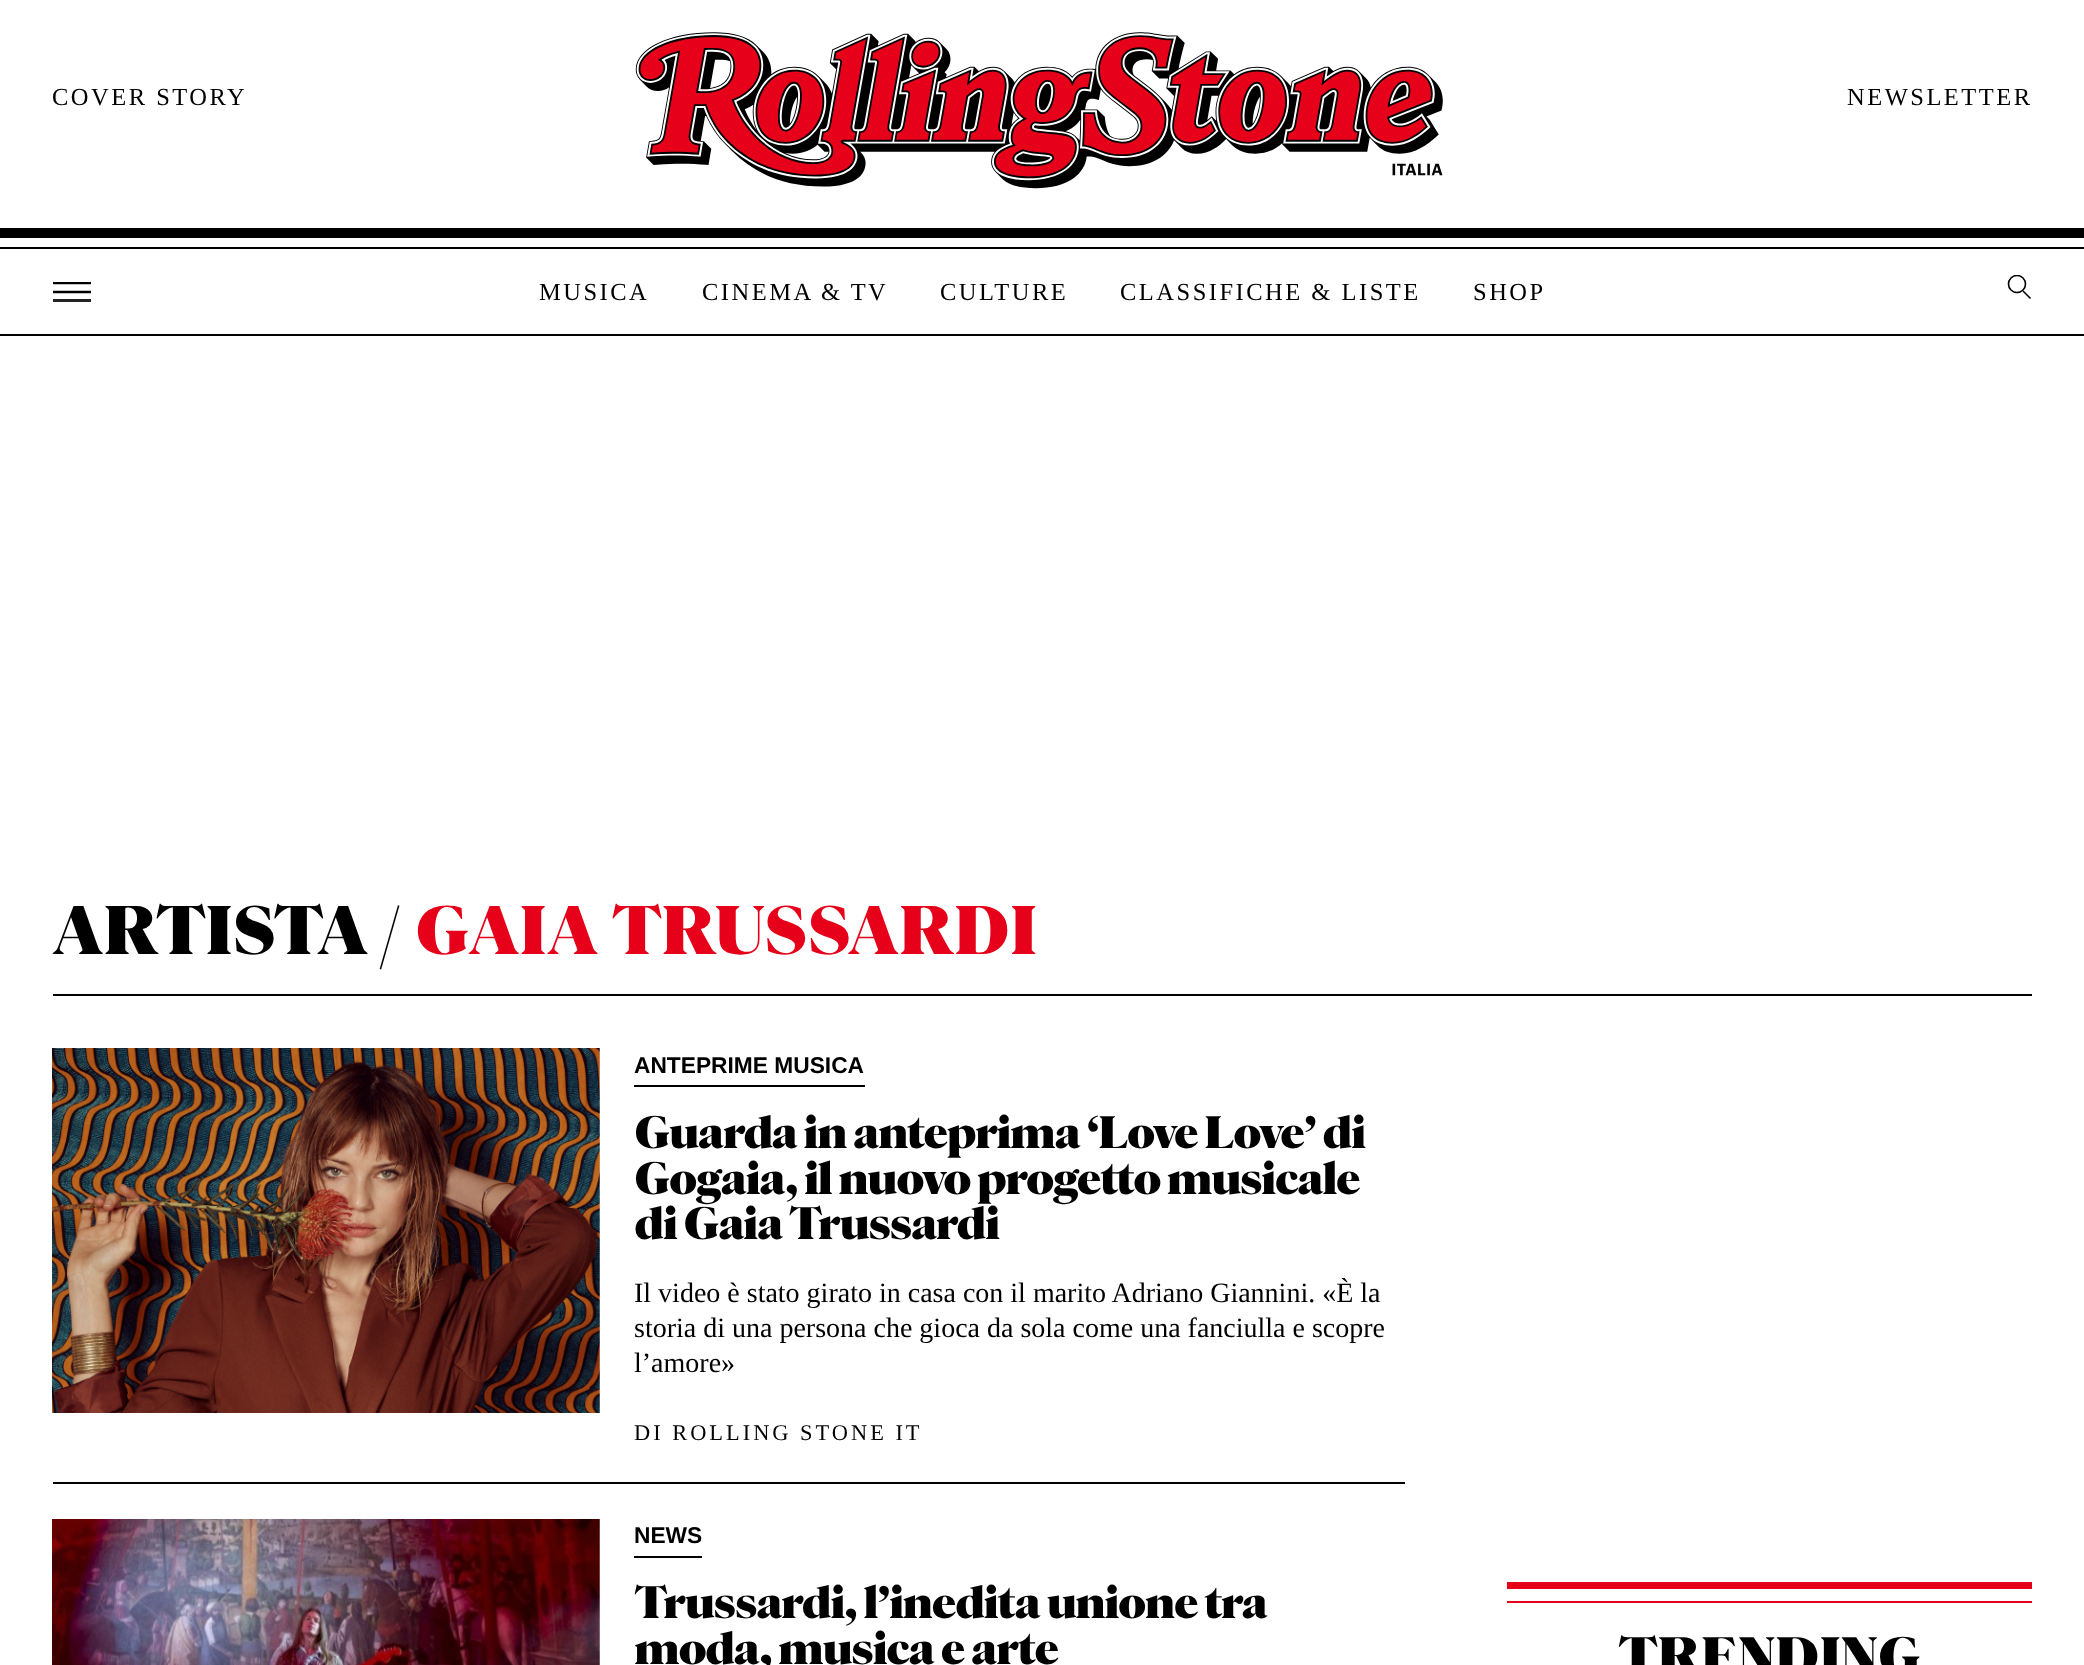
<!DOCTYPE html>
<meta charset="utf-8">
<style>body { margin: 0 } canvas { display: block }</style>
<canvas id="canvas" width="2084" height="1665"></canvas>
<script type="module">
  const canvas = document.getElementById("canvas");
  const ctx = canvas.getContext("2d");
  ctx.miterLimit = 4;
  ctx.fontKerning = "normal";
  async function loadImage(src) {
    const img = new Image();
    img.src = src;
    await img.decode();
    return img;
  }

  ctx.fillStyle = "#ffffff";
  ctx.fillRect(0, 0, 2084, 1665);
  ctx.letterSpacing = "2.5px";
  ctx.font = "24.5px Liberation Serif";
  ctx.fillStyle = "#000000";
  ctx.fillText("COVER STORY", 52, 105);
  ctx.drawImage(await loadImage("img1.png"), 635, 32, 808, 157);
  ctx.fillText("NEWSLETTER", 1847, 105);
  ctx.fillRect(0, 228, 2084, 10);
  ctx.fillRect(0, 247, 2084, 2);
  ctx.save();
  ctx.beginPath();
  ctx.rect(53, 282, 38, 21);
  ctx.clip();
  ctx.beginPath();
  ctx.moveTo(52.5, 283);
  ctx.lineTo(91.5, 283);
  ctx.moveTo(52.5, 292);
  ctx.lineTo(91.5, 292);
  ctx.strokeStyle = "#000000";
  ctx.lineWidth = 2.6;
  ctx.stroke();
  ctx.restore();
  ctx.fillStyle = "#222222";
  ctx.fillRect(53, 299, 38, 3);
  ctx.fillStyle = "#000000";
  ctx.fillText("MUSICA", 539, 300);
  ctx.fillText("CINEMA & TV", 702, 300);
  ctx.fillText("CULTURE", 940, 300);
  ctx.fillText("CLASSIFICHE & LISTE", 1120, 300);
  ctx.fillText("SHOP", 1473, 300);
  ctx.save();
  ctx.beginPath();
  ctx.rect(2007, 275, 25, 24);
  ctx.clip();
  ctx.beginPath();
  ctx.arc(2017, 284, 8.5, 0, Math.PI * 2);
  ctx.strokeStyle = "#000000";
  ctx.lineWidth = 1.6;
  ctx.stroke();
  ctx.restore();
  ctx.beginPath();
  ctx.moveTo(2023, 291);
  ctx.lineTo(2030.5, 298.5);
  ctx.strokeStyle = "#000000";
  ctx.lineWidth = 1.6;
  ctx.stroke();
  ctx.fillRect(0, 334, 2084, 2);
  ctx.fillRect(53, 994, 1979, 2);
  ctx.letterSpacing = "0px";
  ctx.font = "900 66.5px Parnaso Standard";
  ctx.fillText("ARTISTA /", 52, 954);
  ctx.fillStyle = "#e60019";
  ctx.fillText("GAIA TRUSSARDI", 415, 954);
  ctx.fillStyle = "#000000";
  ctx.fillRect(53, 1482, 1352, 2);
  ctx.drawImage(await loadImage("img2.png"), 52, 1048, 548, 365);
  ctx.fillRect(634, 1085, 231, 2);
  ctx.font = "bold 22.75px Liberation Sans";
  ctx.fillText("ANTEPRIME MUSICA", 634, 1073);
  ctx.letterSpacing = "-1.85px";
  ctx.font = "900 44.25px Parnaso Standard";
  ctx.fillText("Guarda in anteprima ‘Love Love’ di", 634, 1148);
  ctx.fillText("Gogaia, il nuovo progetto musicale", 634, 1194);
  ctx.fillText("di Gaia Trussardi", 634, 1239);
  ctx.letterSpacing = "0px";
  ctx.font = "28px Liberation Serif";
  ctx.fillText("Il video è stato girato in casa con il marito Adriano Giannini. «È la", 634, 1302);
  ctx.fillText("storia di una persona che gioca da sola come una fanciulla e scopre", 634, 1337);
  ctx.fillText("l’amore»", 634, 1372);
  ctx.letterSpacing = "3px";
  ctx.font = "22.4px Liberation Serif";
  ctx.fillText("DI ROLLING STONE IT", 634, 1440);
  ctx.drawImage(await loadImage("img3.png"), 52, 1519, 548, 146);
  ctx.fillRect(634, 1556, 68, 2);
  ctx.letterSpacing = "0px";
  ctx.font = "bold 22.75px Liberation Sans";
  ctx.fillText("NEWS", 634, 1543);
  ctx.letterSpacing = "-1.85px";
  ctx.font = "900 44.25px Parnaso Standard";
  ctx.fillText("Trussardi, l’inedita unione tra", 634, 1618);
  ctx.fillText("moda, musica e arte", 634, 1664);
  ctx.fillStyle = "#e60019";
  ctx.fillRect(1507, 1582, 525, 7);
  ctx.fillRect(1507, 1601, 525, 2);
  ctx.letterSpacing = "0px";
  ctx.font = "900 52.5px Parnaso Standard";
  ctx.fillStyle = "#000000";
  ctx.fillText("TRENDING", 1618, 1675);
</script>
